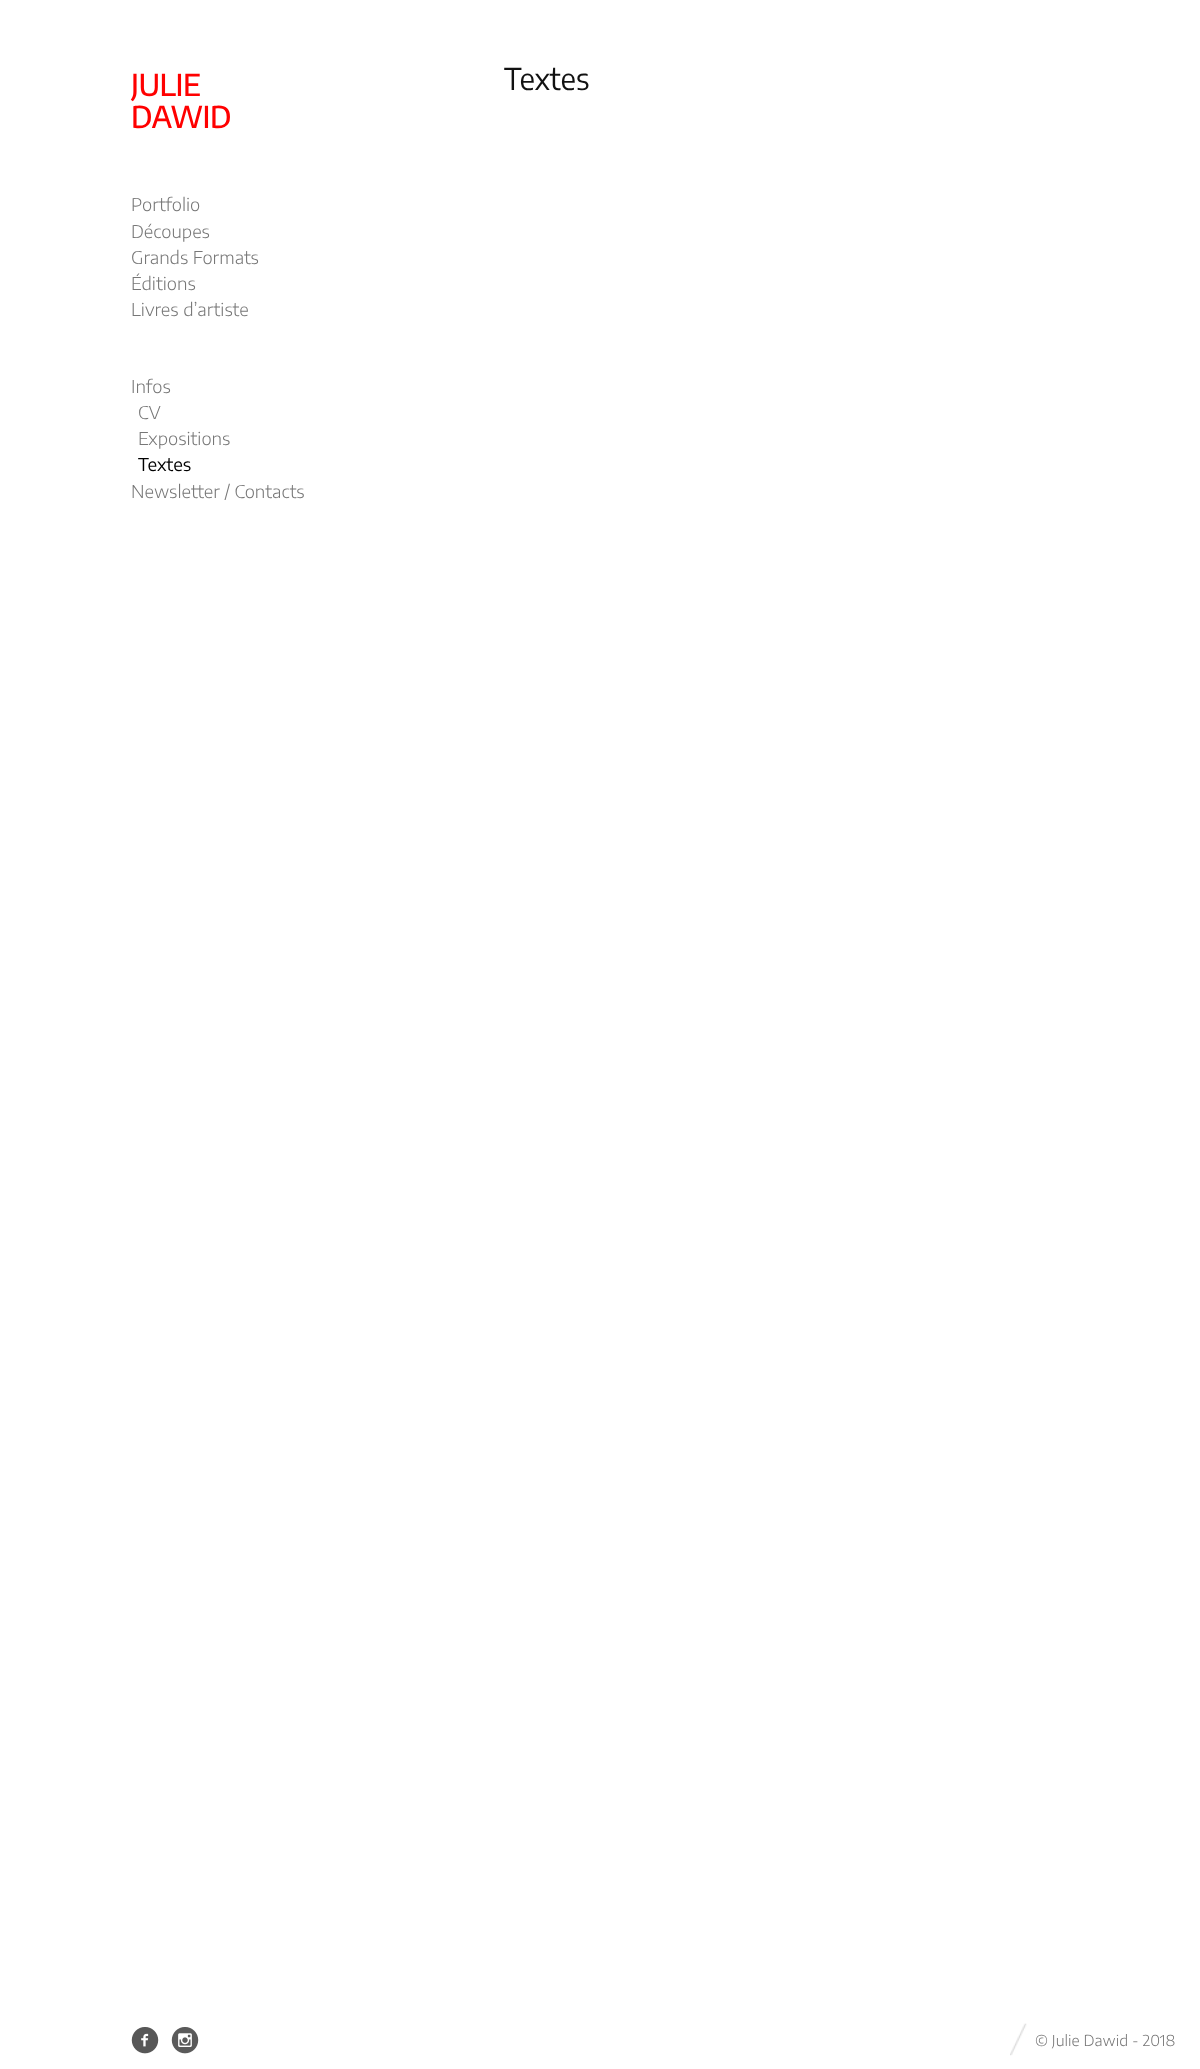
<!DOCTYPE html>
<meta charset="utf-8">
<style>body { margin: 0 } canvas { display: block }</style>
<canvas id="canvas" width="1200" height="2069"></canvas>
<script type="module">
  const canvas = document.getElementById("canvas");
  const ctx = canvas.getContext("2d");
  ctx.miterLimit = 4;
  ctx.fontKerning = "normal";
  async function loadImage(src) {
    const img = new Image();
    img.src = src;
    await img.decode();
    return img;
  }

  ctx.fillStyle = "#ffffff";
  ctx.fillRect(0, 0, 1200, 2069);
  ctx.letterSpacing = "-0.5px";
  ctx.font = "500 30px Encode Sans Condensed";
  ctx.fillStyle = "#ff0000";
  ctx.fillText("JULIE", 131, 96);
  ctx.fillText("DAWID", 131, 128);
  ctx.letterSpacing = "0px";
  ctx.font = "300 17.5px Encode Sans Semi Expanded";
  ctx.fillStyle = "#777777";
  ctx.fillText("Portfolio", 131, 211);
  ctx.fillText("Découpes", 131, 238);
  ctx.fillText("Grands Formats", 131, 264);
  ctx.fillText("Éditions", 131, 290);
  ctx.fillText("Livres d’artiste", 131, 316);
  ctx.fillText("Infos", 131, 393);
  ctx.fillText("CV", 138, 419);
  ctx.fillText("Expositions", 138, 445);
  ctx.font = "17.5px Encode Sans Semi Expanded";
  ctx.fillStyle = "#000000";
  ctx.fillText("Textes", 138, 471);
  ctx.font = "300 17.5px Encode Sans Semi Expanded";
  ctx.fillStyle = "#777777";
  ctx.fillText("Newsletter / Contacts", 131, 498);
  ctx.font = "30px Encode Sans Condensed";
  ctx.fillStyle = "#111111";
  ctx.fillText("Textes", 504, 90);
  ctx.drawImage(await loadImage("img1.png"), 131, 2027, 28, 27);
  ctx.drawImage(await loadImage("img2.png"), 171, 2027, 28, 27);
  ctx.drawImage(await loadImage("img3.png"), 1010, 2023, 17, 33);
  ctx.font = "300 15px Encode Sans Semi Expanded";
  ctx.fillStyle = "#777777";
  ctx.fillText("© Julie Dawid - 2018", 1035, 2046);
</script>
